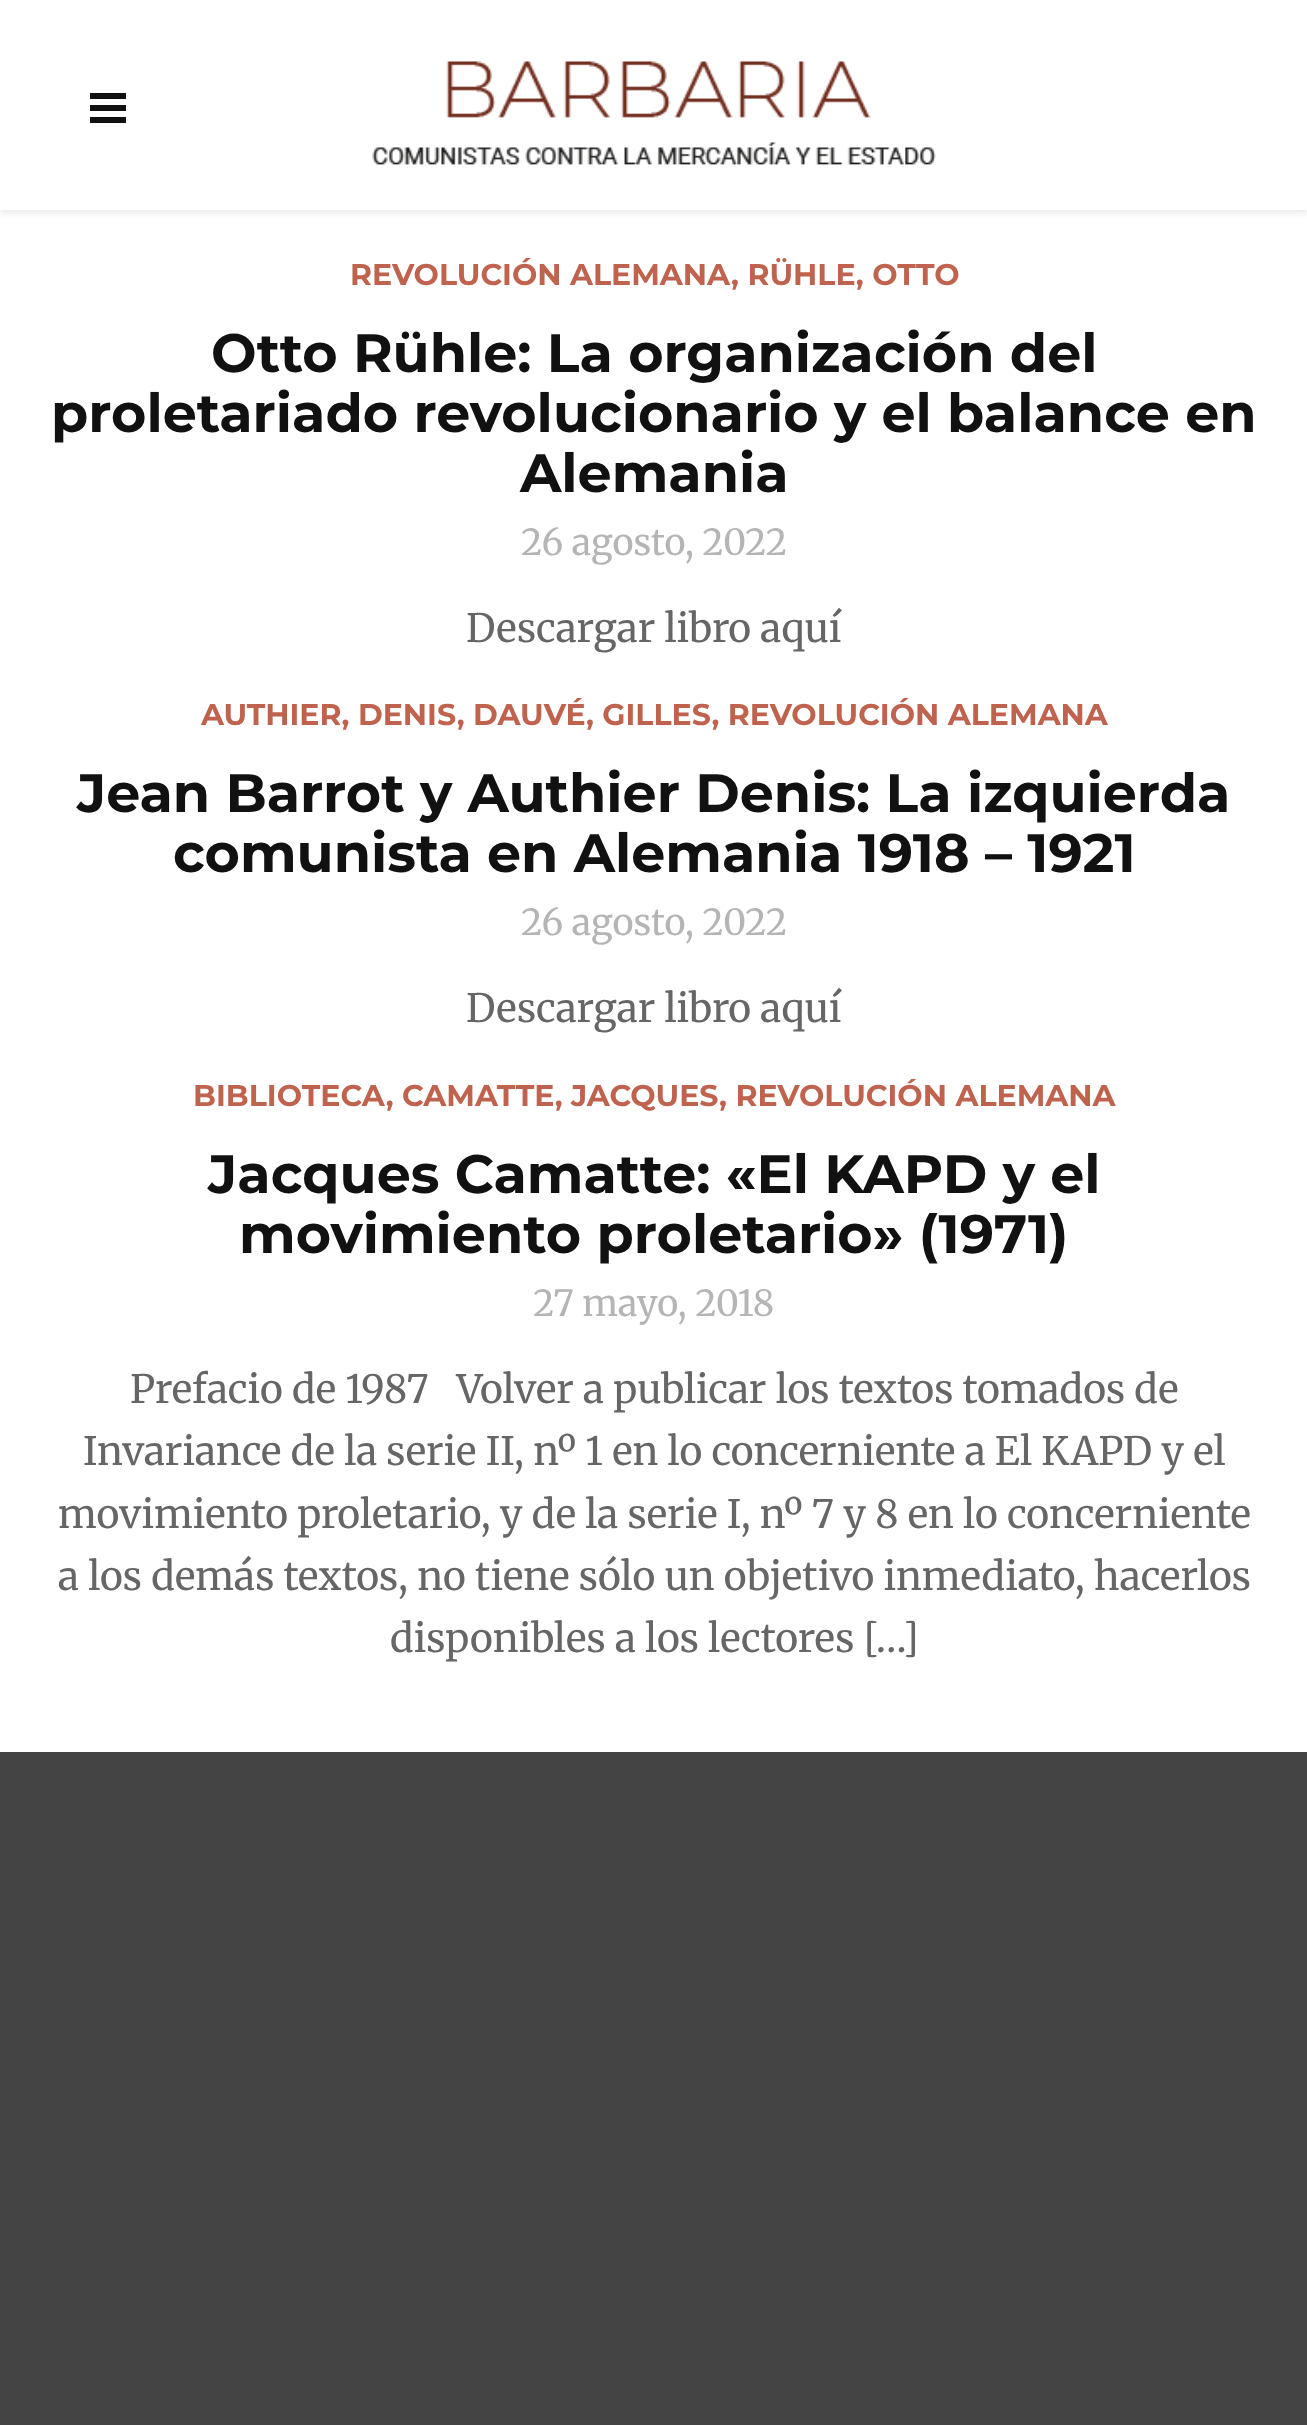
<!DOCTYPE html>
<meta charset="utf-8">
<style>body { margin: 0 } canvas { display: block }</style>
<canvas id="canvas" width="1307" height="2425"></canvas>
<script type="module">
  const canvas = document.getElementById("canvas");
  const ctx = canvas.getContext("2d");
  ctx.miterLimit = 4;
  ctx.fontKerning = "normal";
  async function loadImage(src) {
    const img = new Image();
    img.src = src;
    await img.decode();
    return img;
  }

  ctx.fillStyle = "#444444";
  ctx.fillRect(0, 0, 1307, 2425);
  ctx.fillStyle = "#ffffff";
  ctx.fillRect(0, 0, 1307, 1752);
  ctx.save();
  ctx.beginPath();
  ctx.rect(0, 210, 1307, 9);
  ctx.clip();
  ctx.fillStyle = "#eaeaea";
  ctx.filter = "blur(3px)";
  ctx.beginPath();
  ctx.rect(0, 3, 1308, 210);
  ctx.fill();
  ctx.filter = "none";
  ctx.restore();
  ctx.fillStyle = "#111111";
  ctx.fillRect(90, 93, 36, 6);
  ctx.fillRect(90, 105, 36, 6);
  ctx.fillRect(90, 117, 36, 6);
  ctx.drawImage(await loadImage("img1.png"), 372, 61, 564, 104);
  ctx.font = "bold 30px Montserrat";
  ctx.fillStyle = "#bf634e";
  ctx.fillText("REVOLUCIÓN ALEMANA, RÜHLE, OTTO", 350, 285);
  ctx.font = "bold 54px Montserrat";
  ctx.fillStyle = "#111111";
  ctx.fillText("Otto Rühle: La organización del", 211, 372);
  ctx.fillText("proletariado revolucionario y el balance en", 51, 432);
  ctx.fillText("Alemania", 520, 492);
  ctx.font = "300 36px Merriweather";
  ctx.fillStyle = "#b5b5b5";
  ctx.fillText("26 agosto, 2022", 521, 555);
  ctx.font = "300 39px Merriweather";
  ctx.fillStyle = "#666666";
  ctx.fillText("Descargar libro aquí", 466, 642);
  ctx.font = "bold 30px Montserrat";
  ctx.fillStyle = "#bf634e";
  ctx.fillText("AUTHIER, DENIS, DAUVÉ, GILLES, REVOLUCIÓN ALEMANA", 201, 725);
  ctx.font = "bold 54px Montserrat";
  ctx.fillStyle = "#111111";
  ctx.fillText("Jean Barrot y Authier Denis: La izquierda", 77, 812);
  ctx.fillText("comunista en Alemania 1918 – 1921", 173, 872);
  ctx.font = "300 36px Merriweather";
  ctx.fillStyle = "#b5b5b5";
  ctx.fillText("26 agosto, 2022", 521, 935);
  ctx.font = "300 39px Merriweather";
  ctx.fillStyle = "#666666";
  ctx.fillText("Descargar libro aquí", 466, 1022);
  ctx.font = "bold 30px Montserrat";
  ctx.fillStyle = "#bf634e";
  ctx.fillText("BIBLIOTECA, CAMATTE, JACQUES, REVOLUCIÓN ALEMANA", 193, 1106);
  ctx.font = "bold 54px Montserrat";
  ctx.fillStyle = "#111111";
  ctx.fillText("Jacques Camatte: «El KAPD y el", 208, 1193);
  ctx.fillText("movimiento proletario» (1971)", 239, 1253);
  ctx.font = "300 36px Merriweather";
  ctx.fillStyle = "#b5b5b5";
  ctx.fillText("27 mayo, 2018", 533, 1316);
  ctx.font = "300 39px Merriweather";
  ctx.fillStyle = "#666666";
  ctx.fillText("Prefacio de 1987   Volver a publicar los textos tomados de", 130, 1403);
  ctx.fillText("Invariance de la serie II, nº 1 en lo concerniente a El KAPD y el", 83, 1465);
  ctx.fillText("movimiento proletario, y de la serie I, nº 7 y 8 en lo concerniente", 58, 1528);
  ctx.fillText("a los demás textos, no tiene sólo un objetivo inmediato, hacerlos", 58, 1590);
  ctx.fillText("disponibles a los lectores […]", 390, 1652);
</script>
